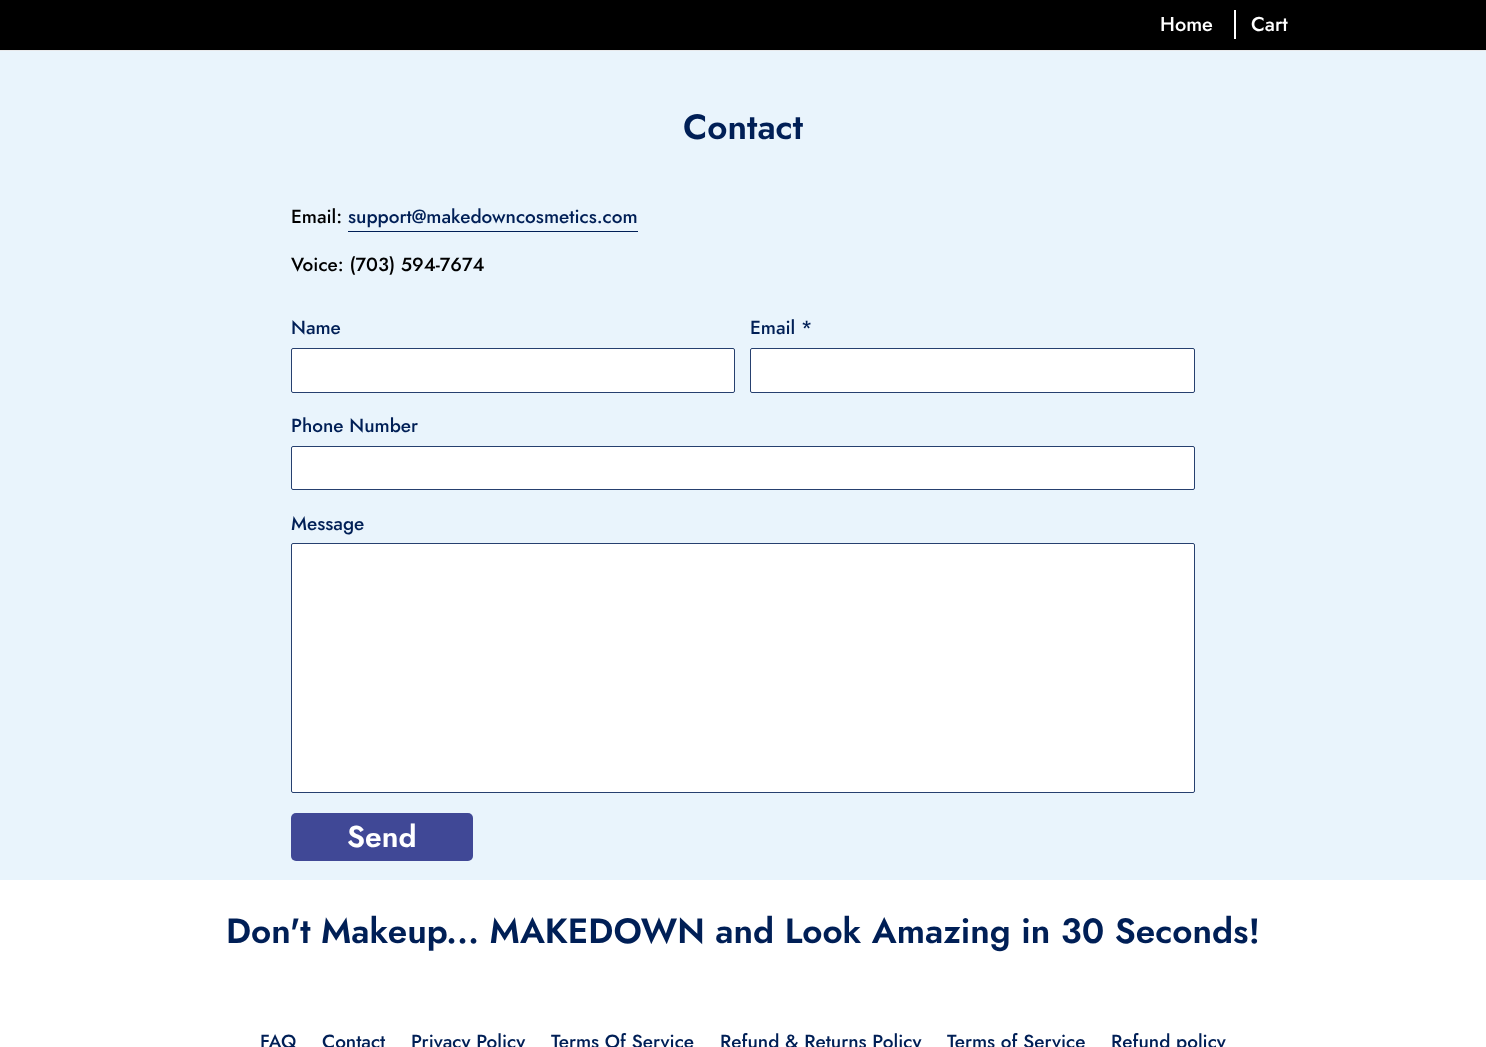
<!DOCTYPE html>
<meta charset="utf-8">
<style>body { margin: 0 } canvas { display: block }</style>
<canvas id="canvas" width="1486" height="1047"></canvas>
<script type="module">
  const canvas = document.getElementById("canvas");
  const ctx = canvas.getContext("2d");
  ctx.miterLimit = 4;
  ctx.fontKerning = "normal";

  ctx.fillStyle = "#e9f4fc";
  ctx.fillRect(0, 0, 1486, 1047);
  ctx.fillStyle = "#000000";
  ctx.fillRect(0, 0, 1486, 50);
  ctx.fillStyle = "#e8e9eb";
  ctx.fillRect(0, 50, 1486, 1);
  ctx.font = "500 20px Jost";
  ctx.fillStyle = "#ffffff";
  ctx.fillText("Home", 1160, 31);
  ctx.fillText("Cart", 1251, 31);
  ctx.fillRect(1234, 10, 2, 29);
  ctx.font = "600 35px Jost";
  ctx.fillStyle = "#001f56";
  ctx.fillText("Contact", 683, 139);
  ctx.font = "500 19px Jost";
  ctx.fillStyle = "#000000";
  ctx.fillText("Email:", 291, 223);
  ctx.fillStyle = "#001f56";
  ctx.fillText("support@makedowncosmetics.com", 348, 223);
  ctx.fillRect(348, 231, 290, 1);
  ctx.fillStyle = "#000000";
  ctx.fillText("Voice: (703) 594-7674", 291, 271);
  ctx.fillStyle = "#001f56";
  ctx.fillText("Name", 291, 334);
  ctx.fillStyle = "#ffffff";
  ctx.beginPath();
  ctx.roundRect(291, 348, 444, 45, 2);
  ctx.fill();
  ctx.beginPath();
  ctx.roundRect(291.5, 348.5, 443, 44, 1.5);
  ctx.strokeStyle = "rgba(0, 31, 86, 0.85)";
  ctx.stroke();
  ctx.fillStyle = "#001f56";
  ctx.fillText("Email *", 750, 334);
  ctx.fillStyle = "#ffffff";
  ctx.beginPath();
  ctx.roundRect(750, 348, 445, 45, 2);
  ctx.fill();
  ctx.beginPath();
  ctx.roundRect(750.5, 348.5, 444, 44, 1.5);
  ctx.stroke();
  ctx.fillStyle = "#001f56";
  ctx.fillText("Phone Number", 291, 432);
  ctx.fillStyle = "#ffffff";
  ctx.beginPath();
  ctx.roundRect(291, 446, 904, 44, 2);
  ctx.fill();
  ctx.beginPath();
  ctx.roundRect(291.5, 446.5, 903, 43, 1.5);
  ctx.stroke();
  ctx.fillStyle = "#001f56";
  ctx.fillText("Message", 291, 530);
  ctx.fillStyle = "#ffffff";
  ctx.beginPath();
  ctx.roundRect(291, 543, 904, 250, 2);
  ctx.fill();
  ctx.beginPath();
  ctx.roundRect(291.5, 543.5, 903, 249, 1.5);
  ctx.stroke();
  ctx.fillStyle = "#404896";
  ctx.beginPath();
  ctx.roundRect(291, 813, 182, 48, 5);
  ctx.fill();
  ctx.font = "600 30px Jost";
  ctx.fillStyle = "#ffffff";
  ctx.fillText("Send", 347, 847);
  ctx.fillRect(0, 880, 1486, 167);
  ctx.font = "600 35px Jost";
  ctx.fillStyle = "#001f56";
  ctx.fillText("Don't Makeup... MAKEDOWN and Look Amazing in 30 Seconds!", 226, 943);
  ctx.font = "500 19px Jost";
  ctx.fillText("FAQ", 260, 1048);
  ctx.fillText("Contact", 322, 1048);
  ctx.fillText("Privacy Policy", 411, 1048);
  ctx.fillText("Terms Of Service", 551, 1048);
  ctx.fillText("Refund & Returns Policy", 720, 1048);
  ctx.fillText("Terms of Service", 947, 1048);
  ctx.fillText("Refund policy", 1111, 1048);
</script>
